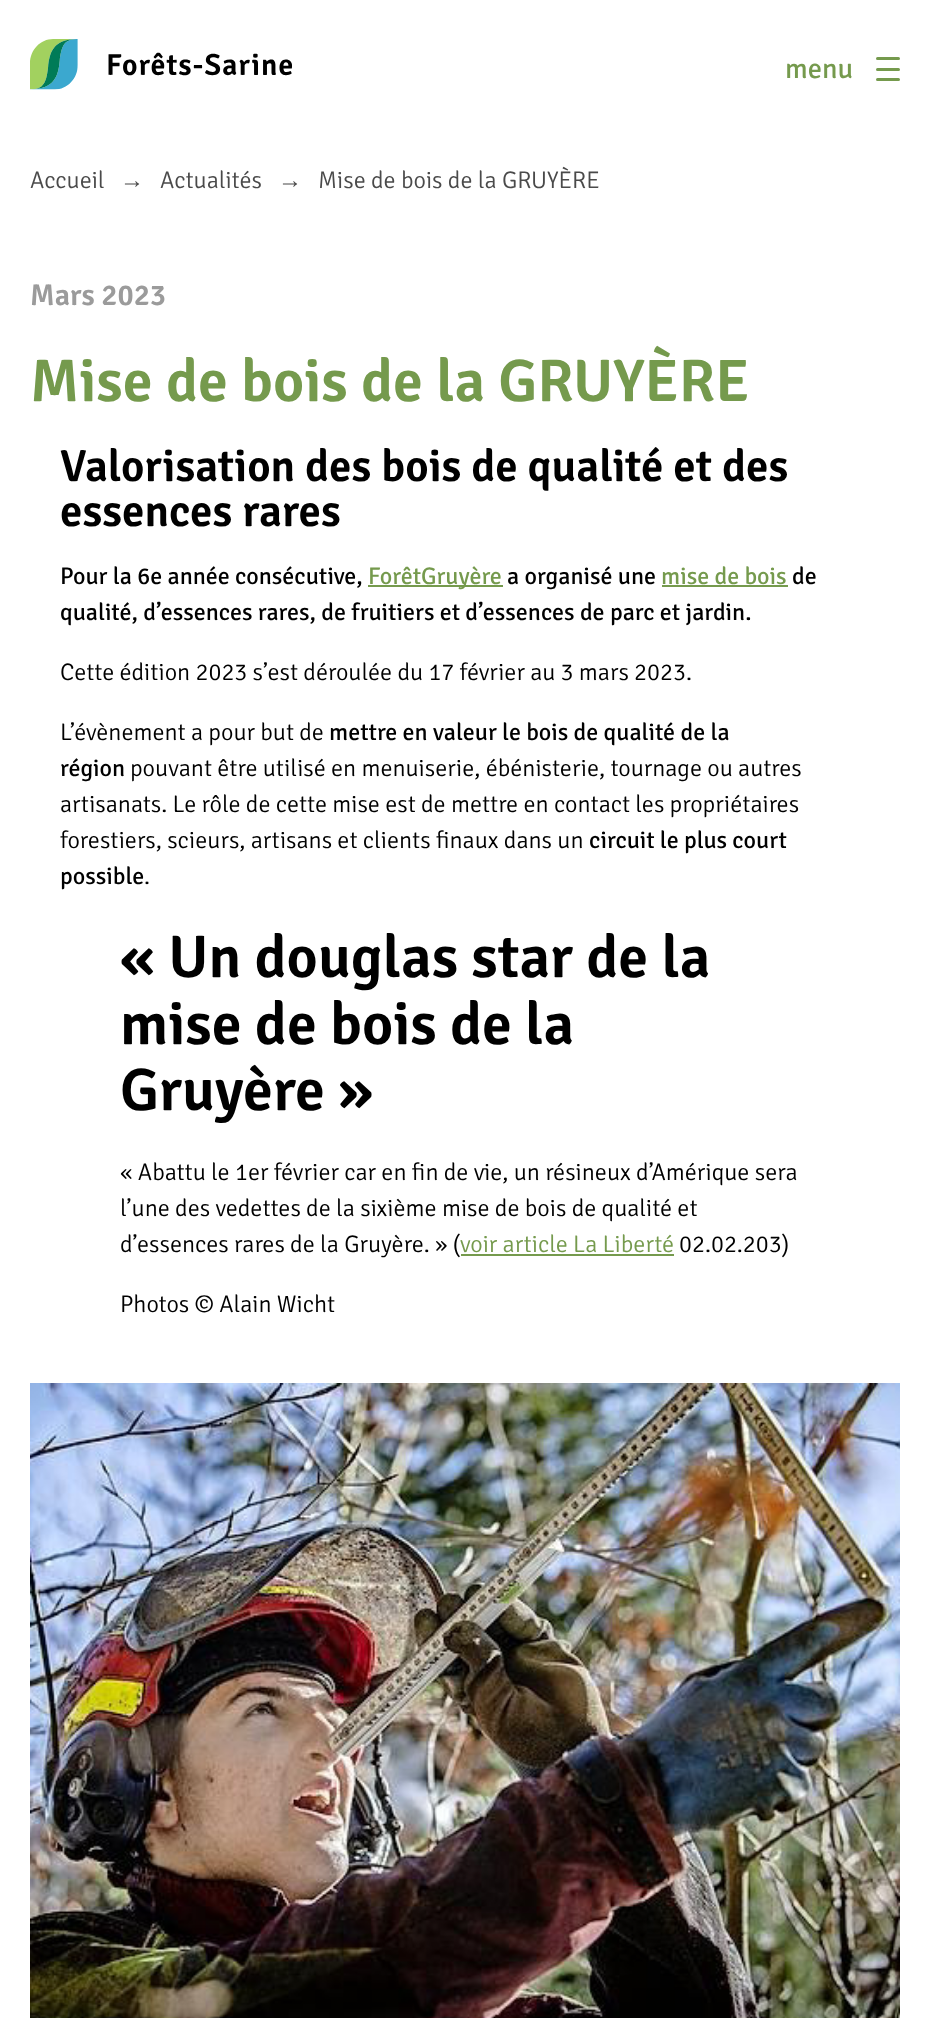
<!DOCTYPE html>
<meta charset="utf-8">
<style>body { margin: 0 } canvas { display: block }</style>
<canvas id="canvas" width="930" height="2018"></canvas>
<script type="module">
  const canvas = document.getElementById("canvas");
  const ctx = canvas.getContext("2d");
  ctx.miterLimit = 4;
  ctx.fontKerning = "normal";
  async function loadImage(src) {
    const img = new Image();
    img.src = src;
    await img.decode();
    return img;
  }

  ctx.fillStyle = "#ffffff";
  ctx.fillRect(0, 0, 930, 2018);
  ctx.drawImage(await loadImage("img1.png"), 30, 39, 262, 51);
  ctx.font = "28.5px Signika";
  ctx.fillStyle = "#759a4d";
  ctx.fillText("menu", 785, 78);
  ctx.beginPath();
  ctx.roundRect(876, 57, 24, 3, 1.5);
  ctx.fill();
  ctx.beginPath();
  ctx.roundRect(876, 68, 24, 3, 1.5);
  ctx.fill();
  ctx.beginPath();
  ctx.roundRect(876, 78, 24, 3, 1.5);
  ctx.fill();
  ctx.font = "300 24px Signika";
  ctx.fillStyle = "#4a4a4a";
  ctx.fillText("Accueil", 30, 188);
  ctx.font = "24px Liberation Sans";
  ctx.fillText("→", 120, 188);
  ctx.font = "300 24px Signika";
  ctx.fillText("Actualités", 160, 188);
  ctx.font = "24px Liberation Sans";
  ctx.fillText("→", 278, 188);
  ctx.font = "300 24px Signika";
  ctx.fillText("Mise de bois de la GRUYÈRE", 318, 188);
  ctx.font = "600 30px Signika";
  ctx.fillStyle = "#9b9b9b";
  ctx.fillText("Mars 2023", 30, 305);
  ctx.font = "600 60px Signika";
  ctx.fillStyle = "#759a4d";
  ctx.fillText("Mise de bois de la GRUYÈRE", 30, 401);
  ctx.font = "600 45px Signika";
  ctx.fillStyle = "#000000";
  ctx.fillText("Valorisation des bois de qualité et des", 60, 481);
  ctx.fillText("essences rares", 60, 526);
  ctx.font = "24px Signika";
  ctx.fillText("Pour la 6e année consécutive,", 60, 584);
  ctx.fillStyle = "#759a4d";
  ctx.fillRect(368, 585, 135, 2);
  ctx.fillText("ForêtGruyère", 368, 584);
  ctx.fillStyle = "#000000";
  ctx.fillText("a organisé une", 507, 584);
  ctx.fillStyle = "#759a4d";
  ctx.fillText("mise de bois", 661, 584);
  ctx.fillRect(662, 585, 126, 2);
  ctx.fillStyle = "#000000";
  ctx.fillText("de", 792, 584);
  ctx.fillText("qualité, d’essences rares, de fruitiers et d’essences de parc et jardin.", 60, 620);
  ctx.font = "300 24px Signika";
  ctx.fillText("Cette édition 2023 s’est déroulée du 17 février au 3 mars 2023.", 60, 680);
  ctx.fillText("L’évènement a pour but de", 60, 740);
  ctx.font = "24px Signika";
  ctx.fillText("mettre en valeur le bois de qualité de la", 329, 740);
  ctx.fillText("région", 60, 776);
  ctx.font = "300 24px Signika";
  ctx.fillText("pouvant être utilisé en menuiserie, ébénisterie, tournage ou autres", 130, 776);
  ctx.fillText("artisanats. Le rôle de cette mise est de mettre en contact les propriétaires", 60, 812);
  ctx.fillText("forestiers, scieurs, artisans et clients finaux dans un", 60, 848);
  ctx.font = "24px Signika";
  ctx.fillText("circuit le plus court", 589, 848);
  ctx.fillText("possible", 60, 884);
  ctx.font = "300 24px Signika";
  ctx.fillText(".", 144, 884);
  ctx.font = "600 60px Signika";
  ctx.fillText("« Un douglas star de la", 120, 977);
  ctx.fillText("mise de bois de la", 120, 1044);
  ctx.fillText("Gruyère »", 120, 1110);
  ctx.font = "300 24px Signika";
  ctx.fillText("« Abattu le 1er février car en fin de vie, un résineux d’Amérique sera", 120, 1180);
  ctx.fillText("l’une des vedettes de la sixième mise de bois de qualité et", 120, 1216);
  ctx.fillText("d’essences rares de la Gruyère. » (", 120, 1252);
  ctx.fillStyle = "#759a4d";
  ctx.fillText("voir article La Liberté", 460, 1252);
  ctx.fillRect(461, 1254, 213, 2);
  ctx.fillStyle = "#000000";
  ctx.fillText("02.02.203)", 679, 1252);
  ctx.fillText("Photos © Alain Wicht", 120, 1312);
  ctx.drawImage(await loadImage("img2.png"), 30, 1383, 870, 635);
</script>
